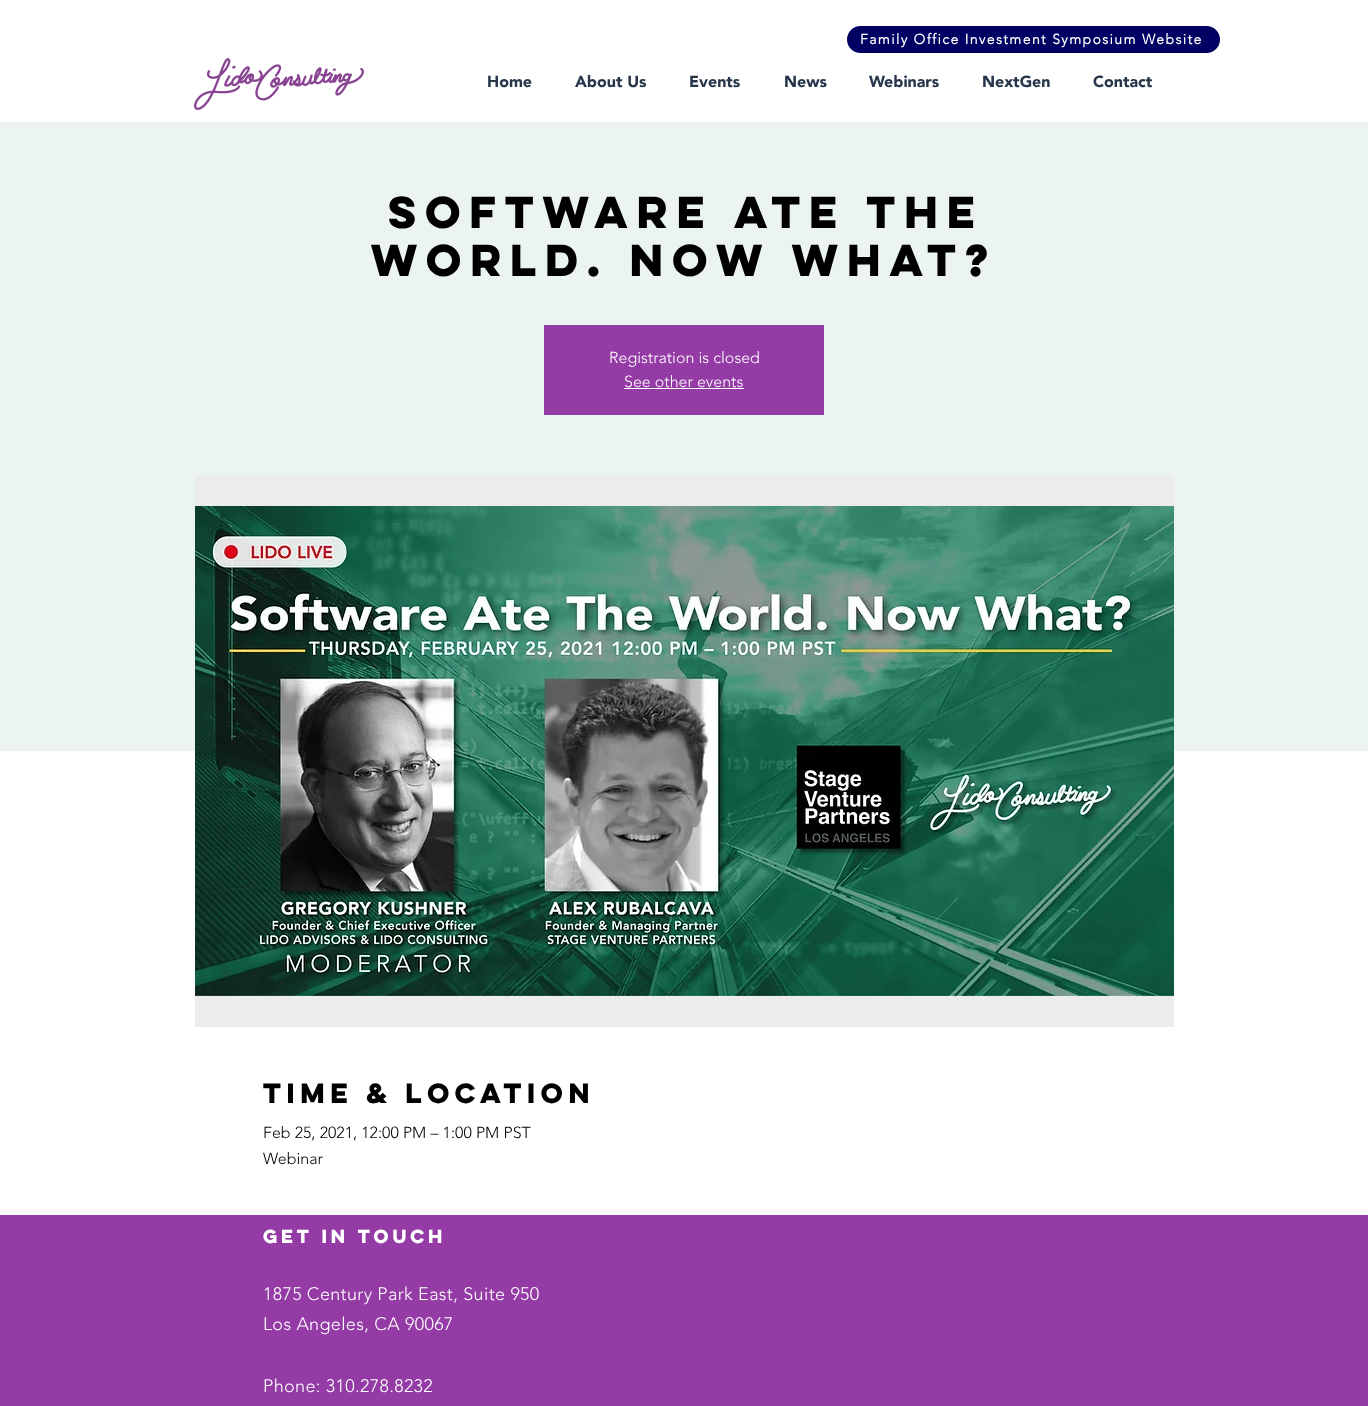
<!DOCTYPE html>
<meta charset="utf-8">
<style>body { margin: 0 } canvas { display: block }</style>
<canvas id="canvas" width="1368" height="1406"></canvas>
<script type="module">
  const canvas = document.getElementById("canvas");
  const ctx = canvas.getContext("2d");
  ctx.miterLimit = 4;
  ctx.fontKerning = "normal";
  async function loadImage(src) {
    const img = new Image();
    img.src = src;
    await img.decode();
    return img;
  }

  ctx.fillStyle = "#ffffff";
  ctx.fillRect(0, 0, 1368, 1406);
  ctx.fillStyle = "#000062";
  ctx.beginPath();
  ctx.roundRect(847, 26, 373, 27, 13.5);
  ctx.fill();
  ctx.letterSpacing = "1.4px";
  ctx.font = "bold 14px 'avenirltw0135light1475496'";
  ctx.fillStyle = "#ffffff";
  ctx.fillText("Family Office Investment Symposium Website", 860, 44);
  ctx.drawImage(await loadImage("img1.png"), 194, 58, 170, 52);
  ctx.letterSpacing = "0px";
  ctx.font = "900 16px Avenir";
  ctx.fillStyle = "#28364b";
  ctx.fillText("Home", 487, 87);
  ctx.fillText("About Us", 575, 87);
  ctx.fillText("Events", 689, 87);
  ctx.fillText("News", 784, 87);
  ctx.fillText("Webinars", 869, 87);
  ctx.fillText("NextGen", 982, 87);
  ctx.fillText("Contact", 1093, 87);
  ctx.fillStyle = "#ebf3f3";
  ctx.fillRect(0, 122, 1368, 629);
  ctx.font = "bold 40px 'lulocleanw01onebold'";
  ctx.fillStyle = "#000000";
  ctx.fillText("Software Ate The", 388, 228);
  ctx.fillText("World. Now What?", 371, 276);
  ctx.fillStyle = "#943ba6";
  ctx.fillRect(544, 325, 280, 90);
  ctx.font = "300 16px 'avenirltw0135light1475496'";
  ctx.fillStyle = "#ffffff";
  ctx.fillText("Registration is closed", 609, 363);
  ctx.fillText("See other events", 624, 387);
  ctx.fillRect(624, 388, 120, 1);
  ctx.fillStyle = "#ececec";
  ctx.fillRect(195, 475, 979, 552);
  ctx.drawImage(await loadImage("img2.png"), 195, 506, 979, 490);
  ctx.font = "bold 25px 'lulocleanw01onebold'";
  ctx.fillStyle = "#000000";
  ctx.fillText("Time & Location", 263, 1103);
  ctx.font = "300 16px 'avenirltw0135light1475496'";
  ctx.fillText("Feb 25, 2021, 12:00 PM – 1:00 PM PST", 263, 1138);
  ctx.fillText("Webinar", 263, 1164);
  ctx.fillStyle = "#943ba6";
  ctx.fillRect(0, 1215, 1368, 191);
  ctx.font = "bold 17px 'lulocleanw01onebold'";
  ctx.fillStyle = "#ffffff";
  ctx.fillText("Get in touch", 263, 1243);
  ctx.letterSpacing = "0.35px";
  ctx.font = "300 18px 'avenirltw0135light1475496'";
  ctx.fillText("1875 Century Park East, Suite 950", 263, 1300);
  ctx.fillText("Los Angeles, CA 90067", 263, 1330);
  ctx.fillText("Phone: 310.278.8232", 263, 1392);
</script>
